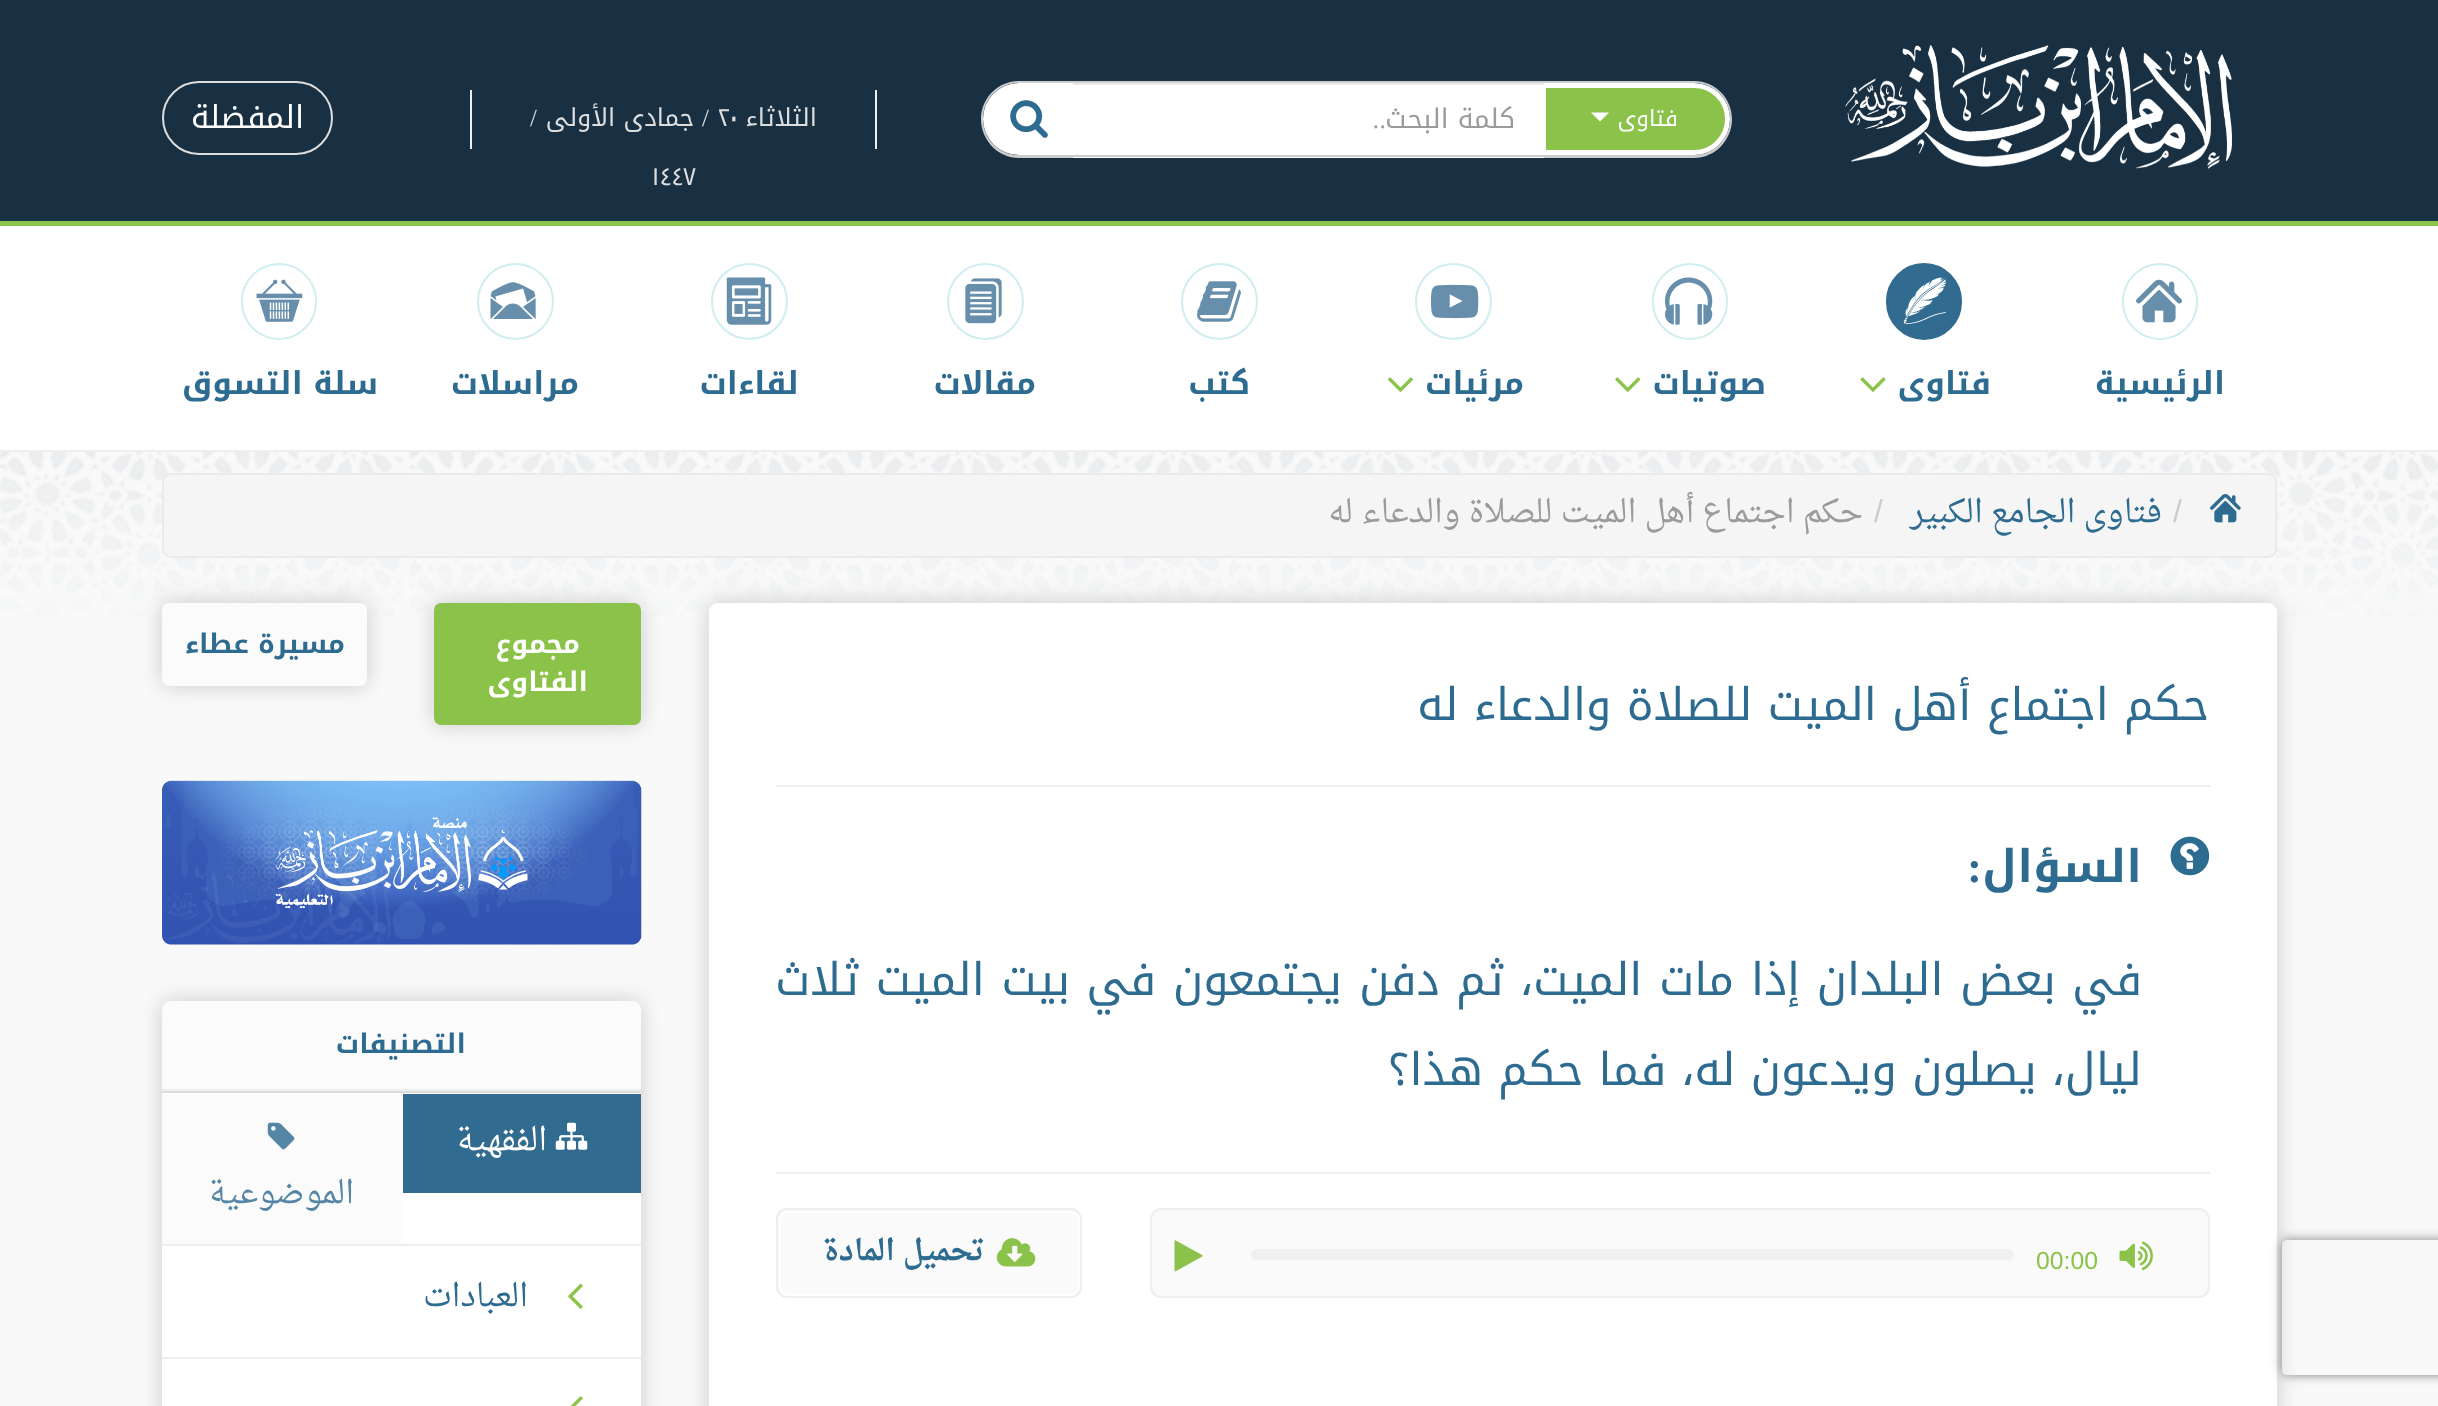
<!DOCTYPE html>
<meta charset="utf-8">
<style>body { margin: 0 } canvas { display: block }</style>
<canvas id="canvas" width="2438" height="1406"></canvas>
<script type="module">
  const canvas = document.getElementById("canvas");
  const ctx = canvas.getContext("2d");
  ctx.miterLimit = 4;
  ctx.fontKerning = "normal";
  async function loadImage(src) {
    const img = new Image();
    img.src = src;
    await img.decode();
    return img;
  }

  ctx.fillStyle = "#f9f9f9";
  ctx.fillRect(0, 0, 2438, 1406);
  ctx.drawImage(await loadImage("img1.png"), 0, 452, 2438, 164);
  ctx.fillStyle = "rgba(136, 136, 136, 0.4)";
  ctx.filter = "blur(11px)";
  ctx.beginPath();
  ctx.roundRect(709, 603, 1568, 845, 9);
  ctx.fill();
  ctx.filter = "none";
  ctx.fillStyle = "#ffffff";
  ctx.beginPath();
  ctx.roundRect(709, 603, 1568, 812, 9);
  ctx.fill();
  ctx.save();
  ctx.beginPath();
  ctx.moveTo(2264, 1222);
  ctx.lineTo(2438, 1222);
  ctx.lineTo(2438, 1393);
  ctx.lineTo(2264, 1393);
  ctx.closePath();
  ctx.moveTo(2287, 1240);
  ctx.lineTo(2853, 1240);
  ctx.bezierCurveTo(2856, 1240, 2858, 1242, 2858, 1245);
  ctx.lineTo(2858, 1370);
  ctx.bezierCurveTo(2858, 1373, 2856, 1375, 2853, 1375);
  ctx.lineTo(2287, 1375);
  ctx.bezierCurveTo(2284, 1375, 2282, 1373, 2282, 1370);
  ctx.lineTo(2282, 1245);
  ctx.bezierCurveTo(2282, 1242, 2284, 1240, 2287, 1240);
  ctx.closePath();
  ctx.clip("evenodd");
  ctx.fillStyle = "#808080";
  ctx.filter = "blur(5.5px)";
  ctx.beginPath();
  ctx.roundRect(2282, 1240, 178, 135, 5);
  ctx.fill();
  ctx.filter = "none";
  ctx.restore();
  ctx.fillStyle = "#193043";
  ctx.fillRect(0, 0, 2438, 221);
  ctx.fillStyle = "#8bc34a";
  ctx.fillRect(0, 221, 2438, 5);
  ctx.drawImage(await loadImage("img2.png"), 1845, 44, 387, 125);
  ctx.beginPath();
  ctx.roundRect(1543.5, 85.5, 184, 67, [0, 33.5, 33.5, 0]);
  ctx.fill();
  ctx.strokeStyle = "#ffffff";
  ctx.lineWidth = 5;
  ctx.stroke();
  ctx.fillStyle = "#cccccc";
  ctx.beginPath();
  ctx.moveTo(1541, 81);
  ctx.lineTo(1694, 81);
  ctx.bezierCurveTo(1715, 81, 1732, 98, 1732, 119);
  ctx.bezierCurveTo(1732, 140, 1715, 158, 1694, 158);
  ctx.lineTo(1541, 158);
  ctx.closePath();
  ctx.moveTo(1541, 83);
  ctx.lineTo(1694, 83);
  ctx.bezierCurveTo(1714, 83, 1730, 99, 1730, 119);
  ctx.bezierCurveTo(1730, 139, 1714, 155, 1694, 155);
  ctx.lineTo(1541, 155);
  ctx.closePath();
  ctx.fill("evenodd");
  ctx.direction = "rtl";
  ctx.font = "22.5px Noto Kufi Arabic";
  ctx.fillStyle = "#ffffff";
  ctx.fillText("فتاوى", 1678, 126);
  ctx.beginPath();
  ctx.moveTo(1591, 112.5);
  ctx.lineTo(1609, 112.5);
  ctx.lineTo(1600, 121.5);
  ctx.closePath();
  ctx.fill();
  ctx.fillRect(1073, 85, 471, 73);
  ctx.fillStyle = "#ececec";
  ctx.fillRect(1071, 83, 473, 2);
  ctx.fillStyle = "#cccccc";
  ctx.fillRect(1071, 81, 473, 2);
  ctx.fillRect(1071, 155, 473, 2);
  ctx.font = "27px Noto Kufi Arabic";
  ctx.fillStyle = "#9b9b9b";
  ctx.fillText("كلمة البحث", 1515, 128);
  ctx.font = "27px Liberation Serif";
  ctx.fillText("..", 1386, 128);
  ctx.fillStyle = "#ffffff";
  ctx.beginPath();
  ctx.roundRect(983, 83, 90, 72, [36, 0, 0, 36]);
  ctx.fill();
  ctx.fillStyle = "#cccccc";
  ctx.beginPath();
  ctx.moveTo(1019, 81);
  ctx.lineTo(1073, 81);
  ctx.lineTo(1073, 158);
  ctx.lineTo(1019, 158);
  ctx.bezierCurveTo(998, 158, 981, 140, 981, 119);
  ctx.bezierCurveTo(981, 98, 998, 81, 1019, 81);
  ctx.closePath();
  ctx.moveTo(1019, 83);
  ctx.lineTo(1073, 83);
  ctx.lineTo(1073, 155);
  ctx.lineTo(1019, 155);
  ctx.bezierCurveTo(999, 155, 983, 139, 983, 119);
  ctx.bezierCurveTo(983, 99, 999, 83, 1019, 83);
  ctx.closePath();
  ctx.fill("evenodd");
  ctx.drawImage(await loadImage("img3.png"), 1010, 100, 38, 38);
  ctx.fillStyle = "#eeeeee";
  ctx.fillRect(875, 90, 2, 59);
  ctx.fillRect(470, 90, 2, 59);
  ctx.font = "24.75px Noto Kufi Arabic";
  ctx.fillStyle = "#dddddd";
  ctx.fillText("الثلاثاء", 817, 126);
  ctx.direction = "ltr";
  ctx.fillText("٢٠", 718, 126);
  ctx.direction = "rtl";
  ctx.font = "24.75px Liberation Serif";
  ctx.fillText("/", 709, 126);
  ctx.font = "24.75px Noto Kufi Arabic";
  ctx.fillText("جمادى الأولى", 694, 126);
  ctx.font = "24.75px Liberation Serif";
  ctx.fillText("/", 537, 126);
  ctx.direction = "ltr";
  ctx.font = "24.75px Noto Kufi Arabic";
  ctx.fillText("١٤٤٧", 652, 185);
  ctx.beginPath();
  ctx.roundRect(163, 82, 169, 72, 36);
  ctx.strokeStyle = "#dddddd";
  ctx.lineWidth = 2;
  ctx.stroke();
  ctx.direction = "rtl";
  ctx.font = "31.5px Noto Kufi Arabic";
  ctx.fillStyle = "#ffffff";
  ctx.fillText("المفضلة", 304, 128);
  ctx.fillRect(0, 226, 2438, 224);
  ctx.fillStyle = "#eeeeee";
  ctx.fillRect(0, 450, 2438, 2);
  ctx.beginPath();
  ctx.roundRect(2123, 264, 74, 75, 37);
  ctx.strokeStyle = "#ceeef0";
  ctx.stroke();
  ctx.drawImage(await loadImage("img4.png"), 2136, 279, 46, 44);
  ctx.font = "bold 31.5px Noto Kufi Arabic";
  ctx.fillStyle = "#2e6b91";
  ctx.fillText("الرئيسية", 2225, 394);
  ctx.fillStyle = "#326b90";
  ctx.beginPath();
  ctx.roundRect(1887, 264, 74, 75, 37);
  ctx.fill();
  ctx.strokeStyle = "#326b90";
  ctx.stroke();
  ctx.drawImage(await loadImage("img5.png"), 1903, 277, 43, 48);
  ctx.fillStyle = "#2e6b91";
  ctx.fillText("فتاوى", 1991, 394);
  ctx.drawImage(await loadImage("img6.png"), 1860, 377, 26, 15);
  ctx.beginPath();
  ctx.roundRect(1653, 264, 74, 75, 37);
  ctx.strokeStyle = "#ceeef0";
  ctx.stroke();
  ctx.drawImage(await loadImage("img7.png"), 1665, 277, 48, 48);
  ctx.fillText("صوتيات", 1766, 394);
  ctx.drawImage(await loadImage("img8.png"), 1615, 377, 26, 15);
  ctx.beginPath();
  ctx.arc(1453.5, 301.5, 37.5, 0, Math.PI * 2);
  ctx.stroke();
  ctx.drawImage(await loadImage("img9.png"), 1431, 284, 48, 35);
  ctx.fillText("مرئيات", 1524, 394);
  ctx.drawImage(await loadImage("img10.png"), 1388, 377, 25, 15);
  ctx.beginPath();
  ctx.arc(1219.5, 301.5, 37.5, 0, Math.PI * 2);
  ctx.stroke();
  ctx.drawImage(await loadImage("img11.png"), 1197, 281, 44, 41);
  ctx.fillText("كتب", 1250, 394);
  ctx.beginPath();
  ctx.arc(985.5, 301.5, 37.5, 0, Math.PI * 2);
  ctx.stroke();
  ctx.drawImage(await loadImage("img12.png"), 965, 278, 37, 46);
  ctx.fillText("مقالات", 1036, 394);
  ctx.beginPath();
  ctx.arc(749.5, 301.5, 37.5, 0, Math.PI * 2);
  ctx.stroke();
  ctx.drawImage(await loadImage("img13.png"), 726, 277, 46, 48);
  ctx.fillText("لقاءات", 799, 394);
  ctx.beginPath();
  ctx.arc(515.5, 301.5, 37.5, 0, Math.PI * 2);
  ctx.stroke();
  ctx.drawImage(await loadImage("img14.png"), 490, 282, 46, 37);
  ctx.fillText("مراسلات", 579, 394);
  ctx.beginPath();
  ctx.roundRect(242, 264, 74, 75, 37);
  ctx.stroke();
  ctx.drawImage(await loadImage("img15.png"), 256, 279, 47, 43);
  ctx.fillText("سلة التسوق", 378, 394);
  ctx.fillStyle = "#f5f5f5";
  ctx.beginPath();
  ctx.roundRect(163, 474, 2113, 83, 8);
  ctx.fill();
  ctx.strokeStyle = "#eaeaea";
  ctx.stroke();
  ctx.drawImage(await loadImage("img16.png"), 2210, 494, 31, 29);
  ctx.direction = "ltr";
  ctx.font = "31.5px Liberation Sans";
  ctx.fillStyle = "#cccccc";
  ctx.fillText("/", 2173, 522);
  ctx.direction = "rtl";
  ctx.font = "31.5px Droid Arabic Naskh";
  ctx.fillStyle = "#2e6b91";
  ctx.fillText("فتاوى الجامع الكبير", 2162, 522);
  ctx.direction = "ltr";
  ctx.font = "31.5px Liberation Sans";
  ctx.fillStyle = "#cccccc";
  ctx.fillText("/", 1874, 522);
  ctx.direction = "rtl";
  ctx.font = "31.5px Droid Arabic Naskh";
  ctx.fillStyle = "#9b9b9b";
  ctx.fillText("حكم اجتماع أهل الميت للصلاة والدعاء له", 1863, 522);
  ctx.fillStyle = "#eeeeee";
  ctx.fillRect(776, 785, 1434, 2);
  ctx.font = "45px Noto Kufi Arabic";
  ctx.fillStyle = "#2e6b91";
  ctx.fillText("حكم اجتماع أهل الميت للصلاة والدعاء له", 2209, 720);
  ctx.fillStyle = "#eeeeee";
  ctx.fillRect(776, 1172, 1434, 2);
  ctx.drawImage(await loadImage("img17.png"), 2170, 836, 40, 40);
  ctx.font = "bold 45px Noto Kufi Arabic";
  ctx.fillStyle = "#2e6b91";
  ctx.fillText("السؤال", 2142, 882);
  ctx.font = "bold 45px Liberation Serif";
  ctx.fillText(":", 1982, 882);
  ctx.wordSpacing = "1.5px";
  ctx.font = "45px Noto Kufi Arabic";
  ctx.fillText("في بعض البلدان إذا مات الميت، ثم دفن يجتمعون في بيت الميت ثلاث", 2142, 995);
  ctx.wordSpacing = "0px";
  ctx.fillText("ليال، يصلون ويدعون له، فما حكم هذا؟", 2142, 1085);
  ctx.fillStyle = "#fafafa";
  ctx.beginPath();
  ctx.roundRect(1151, 1209, 1058, 88, 10);
  ctx.fill();
  ctx.strokeStyle = "#eeeeee";
  ctx.stroke();
  ctx.drawImage(await loadImage("img18.png"), 2119, 1241, 34, 30);
  ctx.direction = "ltr";
  ctx.font = "24.75px Liberation Sans";
  ctx.fillStyle = "#8bc34a";
  ctx.fillText("00:00", 2036, 1269);
  ctx.fillStyle = "#f0f0f0";
  ctx.beginPath();
  ctx.roundRect(1251, 1249, 763, 11, 5.5);
  ctx.fill();
  ctx.drawImage(await loadImage("img19.png"), 1174, 1240, 29, 32);
  ctx.fillStyle = "#fafafa";
  ctx.beginPath();
  ctx.roundRect(776, 1208, 306, 90, 11);
  ctx.fill();
  ctx.beginPath();
  ctx.roundRect(780, 1212, 299, 83, 8);
  ctx.strokeStyle = "#ffffff";
  ctx.stroke();
  ctx.beginPath();
  ctx.roundRect(777, 1209, 304, 88, 10);
  ctx.strokeStyle = "#eeeeee";
  ctx.stroke();
  ctx.drawImage(await loadImage("img20.png"), 996, 1238, 40, 29);
  ctx.direction = "rtl";
  ctx.font = "bold 29.25px Droid Arabic Naskh";
  ctx.fillStyle = "#2e6b91";
  ctx.fillText("تحميل المادة", 984, 1260);
  ctx.fillStyle = "rgba(136, 136, 136, 0.4)";
  ctx.filter = "blur(11px)";
  ctx.beginPath();
  ctx.roundRect(434, 603, 207, 122, 7);
  ctx.fill();
  ctx.filter = "none";
  ctx.fillStyle = "#8bc34a";
  ctx.beginPath();
  ctx.roundRect(434, 603, 207, 122, 7);
  ctx.fill();
  ctx.font = "bold 27px Noto Kufi Arabic";
  ctx.fillStyle = "#ffffff";
  ctx.fillText("مجموع", 580, 653);
  ctx.fillText("الفتاوى", 588, 691);
  ctx.fillStyle = "rgba(136, 136, 136, 0.4)";
  ctx.filter = "blur(11px)";
  ctx.beginPath();
  ctx.roundRect(162, 603, 205, 83, 7);
  ctx.fill();
  ctx.filter = "none";
  ctx.fillStyle = "#fbfbfb";
  ctx.beginPath();
  ctx.roundRect(162, 603, 205, 83, 7);
  ctx.fill();
  ctx.fillStyle = "#2e6b91";
  ctx.fillText("مسيرة عطاء", 345, 653);
  ctx.drawImage(await loadImage("img21.png"), 162, 780, 480, 165);
  ctx.fillStyle = "rgba(136, 136, 136, 0.4)";
  ctx.filter = "blur(11px)";
  ctx.beginPath();
  ctx.roundRect(162, 1001, 479, 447, 9);
  ctx.fill();
  ctx.filter = "none";
  ctx.fillStyle = "#ffffff";
  ctx.beginPath();
  ctx.roundRect(162, 1001, 479, 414, 9);
  ctx.fill();
  ctx.fillStyle = "#eeeeee";
  ctx.fillRect(162, 1089, 479, 2);
  ctx.fillStyle = "#fbfbfb";
  ctx.beginPath();
  ctx.roundRect(162, 1001, 479, 88, [9, 9, 0, 0]);
  ctx.fill();
  ctx.fillStyle = "#2e6b91";
  ctx.fillText("التصنيفات", 466, 1053);
  ctx.fillStyle = "#dddddd";
  ctx.fillRect(162, 1091, 479, 2);
  ctx.fillStyle = "#326b90";
  ctx.fillRect(403, 1094, 238, 99);
  ctx.drawImage(await loadImage("img22.png"), 555, 1122, 33, 28);
  ctx.font = "31.5px Droid Arabic Naskh";
  ctx.fillStyle = "#ffffff";
  ctx.fillText("الفقهية", 547, 1150);
  ctx.fillStyle = "#fbfbfb";
  ctx.fillRect(162, 1094, 239, 150);
  ctx.drawImage(await loadImage("img23.png"), 267, 1122, 28, 28);
  ctx.fillStyle = "#5586a5";
  ctx.fillText("الموضوعية", 354, 1203);
  ctx.fillStyle = "#eeeeee";
  ctx.fillRect(162, 1244, 479, 2);
  ctx.drawImage(await loadImage("img24.png"), 568, 1283, 15, 26);
  ctx.fillStyle = "#2e6b91";
  ctx.fillText("العبادات", 528, 1306);
  ctx.fillStyle = "#eeeeee";
  ctx.fillRect(162, 1357, 479, 2);
  ctx.drawImage(await loadImage("img25.png"), 570, 1396, 13, 10);
</script>
